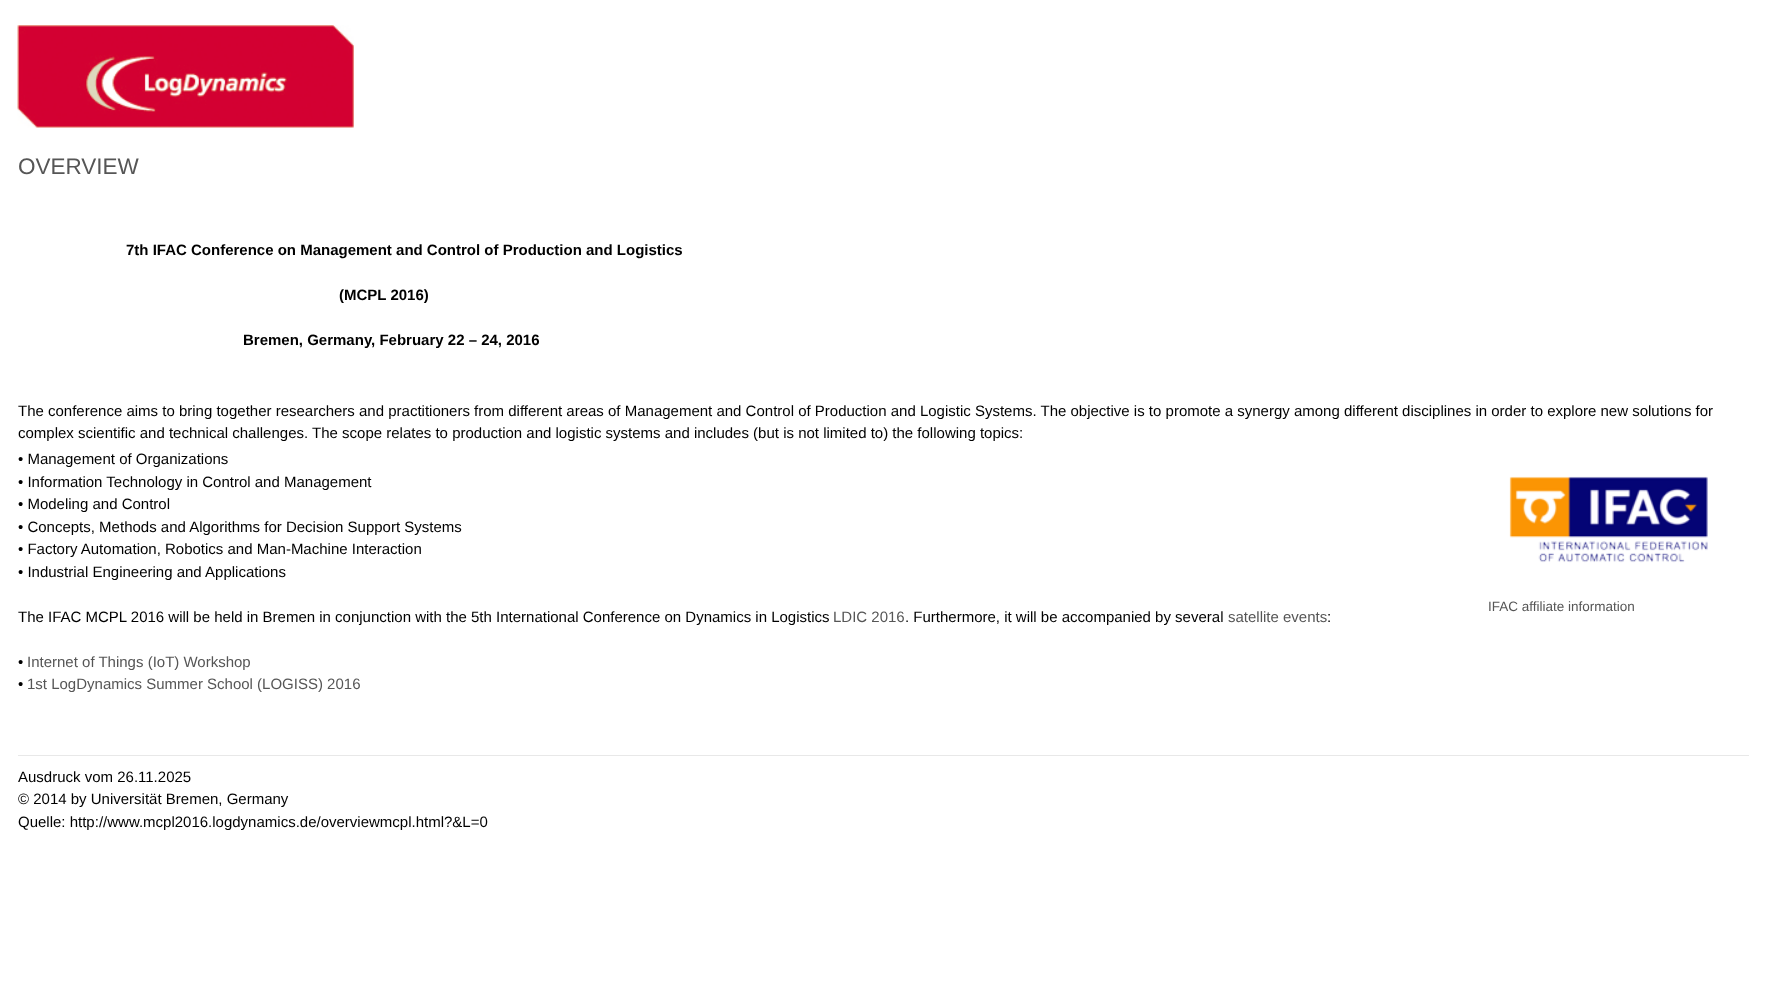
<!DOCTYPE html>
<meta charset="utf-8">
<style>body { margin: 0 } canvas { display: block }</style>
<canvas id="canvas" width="1766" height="1001"></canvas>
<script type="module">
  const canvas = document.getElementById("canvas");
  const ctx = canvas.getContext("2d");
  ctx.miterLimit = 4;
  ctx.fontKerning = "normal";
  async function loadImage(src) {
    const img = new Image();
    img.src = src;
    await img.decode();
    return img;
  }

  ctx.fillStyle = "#ffffff";
  ctx.fillRect(0, 0, 1766, 1001);
  ctx.drawImage(await loadImage("img1.png"), 17, 25, 337, 103);
  ctx.font = "22.5px Liberation Sans";
  ctx.fillStyle = "#565656";
  ctx.fillText("OVERVIEW", 18, 174);
  ctx.font = "bold 15px Liberation Sans";
  ctx.fillStyle = "#000000";
  ctx.fillText("7th IFAC Conference on Management and Control of Production and Logistics", 126, 255);
  ctx.fillText("(MCPL 2016)", 339, 300);
  ctx.fillText("Bremen, Germany, February 22 – 24, 2016", 243, 345);
  ctx.font = "15px Liberation Sans";
  ctx.fillText("The conference aims to bring together researchers and practitioners from different areas of Management and Control of Production and Logistic Systems. The objective is to promote a synergy among different disciplines in order to explore new solutions for", 18, 416);
  ctx.fillText("complex scientific and technical challenges. The scope relates to production and logistic systems and includes (but is not limited to) the following topics:", 18, 438);
  ctx.fillText("• Management of Organizations", 18, 464);
  ctx.fillText("• Information Technology in Control and Management", 18, 487);
  ctx.fillText("• Modeling and Control", 18, 509);
  ctx.fillText("• Concepts, Methods and Algorithms for Decision Support Systems", 18, 532);
  ctx.fillText("• Factory Automation, Robotics and Man-Machine Interaction", 18, 554);
  ctx.fillText("• Industrial Engineering and Applications", 18, 577);
  ctx.fillText("The IFAC MCPL 2016 will be held in Bremen in conjunction with the 5th International Conference on Dynamics in Logistics", 18, 622);
  ctx.fillStyle = "#565656";
  ctx.fillText("LDIC 2016", 833, 622);
  ctx.fillStyle = "#000000";
  ctx.fillText(". Furthermore, it will be accompanied by several", 905, 622);
  ctx.fillStyle = "#565656";
  ctx.fillText("satellite events", 1228, 622);
  ctx.fillStyle = "#000000";
  ctx.fillText(":", 1327, 622);
  ctx.fillText("•", 18, 667);
  ctx.fillStyle = "#565656";
  ctx.fillText("Internet of Things (IoT) Workshop", 27, 667);
  ctx.fillStyle = "#000000";
  ctx.fillText("•", 18, 689);
  ctx.fillStyle = "#565656";
  ctx.fillText("1st LogDynamics Summer School (LOGISS) 2016", 27, 689);
  ctx.drawImage(await loadImage("img2.png"), 1509, 476, 199, 87);
  ctx.font = "13.5px Liberation Sans";
  ctx.fillText("IFAC affiliate information", 1488, 611);
  ctx.fillStyle = "#e8e8e8";
  ctx.fillRect(18, 755, 1731, 1);
  ctx.font = "15px Liberation Sans";
  ctx.fillStyle = "#000000";
  ctx.fillText("Ausdruck vom 26.11.2025", 18, 782);
  ctx.fillText("© 2014 by Universität Bremen, Germany", 18, 804);
  ctx.fillText("Quelle: http://www.mcpl2016.logdynamics.de/overviewmcpl.html?&L=0", 18, 827);
</script>
